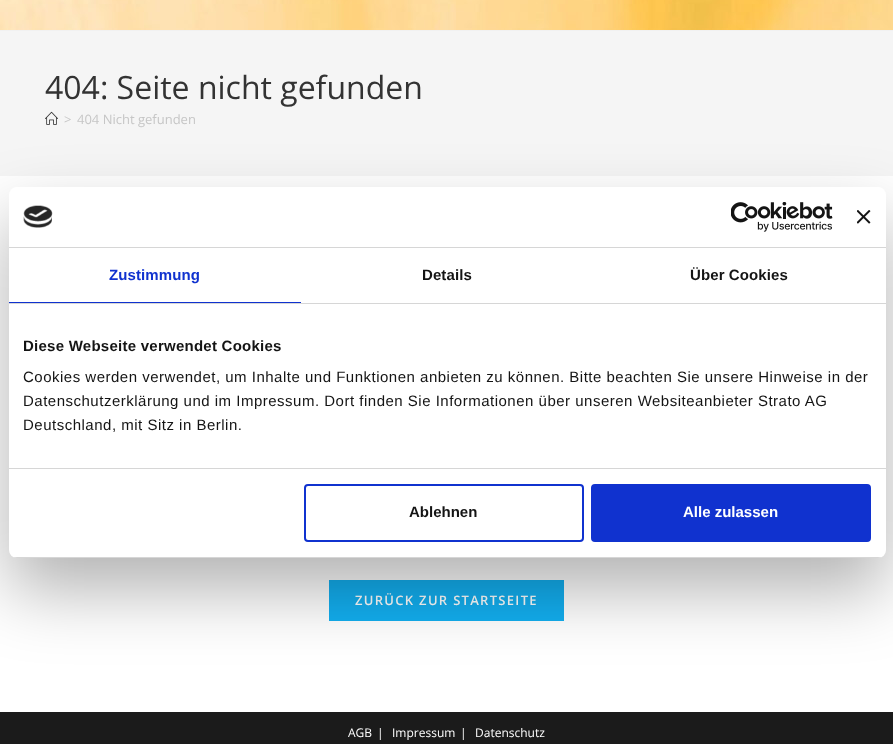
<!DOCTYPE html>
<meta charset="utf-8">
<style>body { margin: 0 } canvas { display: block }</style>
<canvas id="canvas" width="893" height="744"></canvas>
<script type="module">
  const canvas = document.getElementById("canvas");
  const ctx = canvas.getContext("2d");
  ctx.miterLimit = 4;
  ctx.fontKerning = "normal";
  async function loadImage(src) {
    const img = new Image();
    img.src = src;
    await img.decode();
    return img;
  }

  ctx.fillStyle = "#ffffff";
  ctx.fillRect(0, 0, 893, 744);
  ctx.drawImage(await loadImage("img1.png"), 0, 0, 893, 30);
  ctx.fillStyle = "#f1f1f1";
  ctx.fillRect(0, 30, 893, 1);
  ctx.fillStyle = "#f5f5f5";
  ctx.fillRect(0, 31, 893, 145);
  ctx.font = "32px Open Sans";
  ctx.fillStyle = "#333333";
  ctx.fillText("404: Seite nicht gefunden", 45, 99);
  ctx.drawImage(await loadImage("img2.png"), 45, 111, 13, 14);
  ctx.font = "13px Open Sans";
  ctx.fillStyle = "#c6c6c6";
  ctx.fillText(">", 64, 124);
  ctx.fillText("404 Nicht gefunden", 77, 124);
  ctx.fillStyle = "#13aff0";
  ctx.fillRect(329, 580, 235, 41);
  ctx.letterSpacing = "1.3px";
  ctx.font = "600 13px Open Sans";
  ctx.fillStyle = "#ffffff";
  ctx.fillText("ZURÜCK ZUR STARTSEITE", 355, 605);
  ctx.fillStyle = "#1b1b1b";
  ctx.fillRect(0, 712, 893, 32);
  ctx.letterSpacing = "0px";
  ctx.font = "12px Open Sans";
  ctx.fillStyle = "#ffffff";
  ctx.fillText("AGB", 348, 737);
  ctx.fillText("|", 377, 737);
  ctx.fillText("Impressum", 392, 737);
  ctx.fillText("|", 460, 737);
  ctx.fillText("Datenschutz", 475, 737);
  ctx.fillStyle = "rgba(0, 0, 0, 0.3)";
  ctx.filter = "blur(34px)";
  ctx.beginPath();
  ctx.roundRect(9, 219, 877, 371, 8);
  ctx.fill();
  ctx.filter = "none";
  ctx.fillStyle = "#ffffff";
  ctx.beginPath();
  ctx.roundRect(9, 187, 877, 371, 8);
  ctx.fill();
  ctx.fillStyle = "#d6d6d6";
  ctx.fillRect(9, 247, 877, 1);
  ctx.drawImage(await loadImage("img3.png"), 23, 205, 30, 23);
  ctx.drawImage(await loadImage("img4.png"), 731, 202, 102, 30);
  ctx.drawImage(await loadImage("img5.png"), 857, 210, 14, 14);
  ctx.fillRect(9, 303, 877, 1);
  ctx.fillStyle = "#1032cf";
  ctx.fillRect(9, 302, 292, 1);
  ctx.letterSpacing = "0.1px";
  ctx.font = "bold 15px Liberation Sans";
  ctx.fillText("Zustimmung", 109, 280);
  ctx.fillStyle = "#141414";
  ctx.fillText("Details", 422, 280);
  ctx.fillText("Über Cookies", 690, 280);
  ctx.fillStyle = "#d6d6d6";
  ctx.fillRect(9, 468, 877, 1);
  ctx.letterSpacing = "0.25px";
  ctx.fillStyle = "#141414";
  ctx.fillText("Diese Webseite verwendet Cookies", 23, 351);
  ctx.letterSpacing = "0.5px";
  ctx.font = "15px Liberation Sans";
  ctx.fillText("Cookies werden verwendet, um Inhalte und Funktionen anbieten zu können. Bitte beachten Sie unsere Hinweise in der", 23, 382);
  ctx.fillText("Datenschutzerklärung und im Impressum. Dort finden Sie Informationen über unseren Websiteanbieter Strato AG", 23, 406);
  ctx.fillText("Deutschland, mit Sitz in Berlin.", 23, 430);
  ctx.save();
  ctx.beginPath();
  ctx.roundRect(9, 187, 877, 371, 8);
  ctx.clip();
  ctx.fillStyle = "#d6d6d6";
  ctx.fillRect(9, 557, 877, 1);
  ctx.restore();
  ctx.beginPath();
  ctx.roundRect(305, 485, 278, 56, 3);
  ctx.strokeStyle = "#1032cf";
  ctx.lineWidth = 2;
  ctx.stroke();
  ctx.letterSpacing = "0px";
  ctx.font = "bold 15px Liberation Sans";
  ctx.fillText("Ablehnen", 409, 517);
  ctx.fillStyle = "#1032cf";
  ctx.beginPath();
  ctx.roundRect(592, 485, 278, 56, 3);
  ctx.fill();
  ctx.stroke();
  ctx.fillStyle = "#ffffff";
  ctx.fillText("Alle zulassen", 683, 517);
</script>
